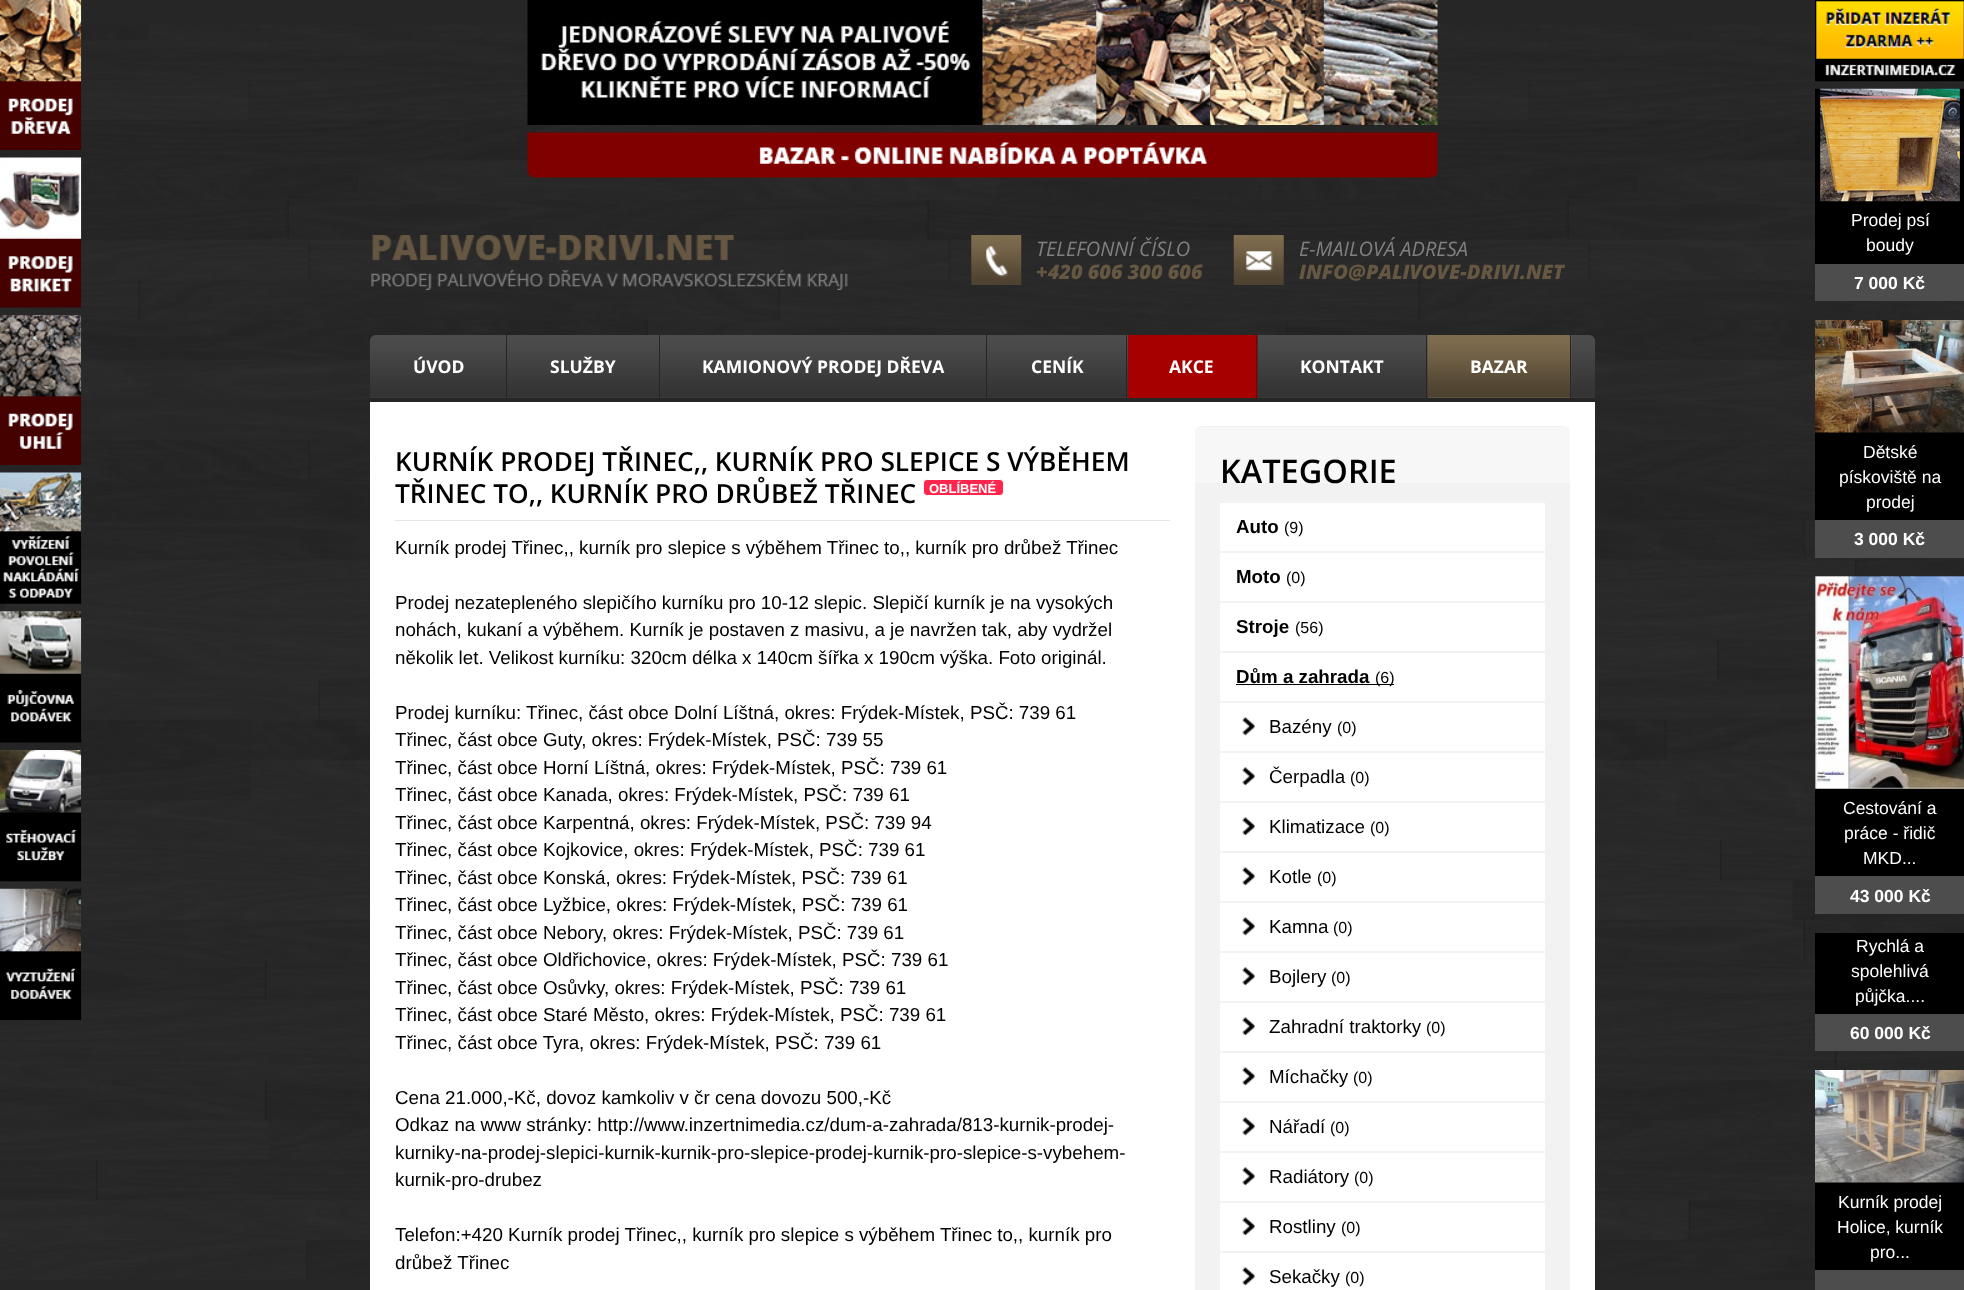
<!DOCTYPE html>
<meta charset="utf-8">
<style>body { margin: 0 } canvas { display: block }</style>
<canvas id="canvas" width="1964" height="1290"></canvas>
<script type="module">
  const canvas = document.getElementById("canvas");
  const ctx = canvas.getContext("2d");
  ctx.miterLimit = 4;
  ctx.fontKerning = "normal";
  async function loadImage(src) {
    const img = new Image();
    img.src = src;
    await img.decode();
    return img;
  }

  ctx.fillStyle = "#262626";
  ctx.fillRect(0, 0, 1964, 1290);
  ctx.drawImage(await loadImage("img1.png"), 0, 24, 1964, 1256);
  ctx.drawImage(await loadImage("img2.png"), 0, 0, 82, 150);
  ctx.drawImage(await loadImage("img3.png"), 0, 157, 82, 151);
  ctx.drawImage(await loadImage("img4.png"), 0, 315, 82, 150);
  ctx.drawImage(await loadImage("img5.png"), 0, 472, 82, 132);
  ctx.drawImage(await loadImage("img6.png"), 0, 611, 82, 132);
  ctx.drawImage(await loadImage("img7.png"), 0, 750, 82, 132);
  ctx.drawImage(await loadImage("img8.png"), 0, 888, 82, 132);
  ctx.drawImage(await loadImage("img9.png"), 527, 0, 911, 125);
  ctx.drawImage(await loadImage("img10.png"), 527, 132, 911, 46);
  ctx.drawImage(await loadImage("img11.png"), 371, 235, 477, 55);
  ctx.drawImage(await loadImage("img12.png"), 971, 235, 51, 50);
  ctx.font = "italic 20px Open Sans";
  ctx.fillStyle = "#808080";
  ctx.fillText("TELEFONNÍ ČÍSLO", 1036, 256);
  ctx.font = "italic 800 20px Open Sans";
  ctx.fillStyle = "#665742";
  ctx.fillText("+420 606 300 606", 1036, 279);
  ctx.drawImage(await loadImage("img13.png"), 1233, 235, 51, 50);
  ctx.font = "italic 20px Open Sans";
  ctx.fillStyle = "#808080";
  ctx.fillText("E-MAILOVÁ ADRESA", 1299, 256);
  ctx.font = "italic 800 20px Open Sans";
  ctx.fillStyle = "#665742";
  ctx.fillText("INFO@PALIVOVE-DRIVI.NET", 1299, 279);
  ctx.fillStyle = "#404040";
  ctx.beginPath();
  ctx.roundRect(370, 335, 1225, 66, [6, 6, 0, 0]);
  ctx.fill();
  ctx.drawImage(await loadImage("img14.png"), 370, 335, 1225, 63);
  ctx.fillStyle = "#262626";
  ctx.fillRect(370, 398, 1225, 4);
  ctx.fillRect(506, 335, 1, 63);
  ctx.font = "bold 17.5px Open Sans";
  ctx.fillStyle = "#ffffff";
  ctx.fillText("ÚVOD", 413, 373);
  ctx.fillStyle = "#262626";
  ctx.fillRect(659, 335, 1, 63);
  ctx.fillStyle = "#ffffff";
  ctx.fillText("SLUŽBY", 550, 373);
  ctx.fillStyle = "#262626";
  ctx.fillRect(986, 335, 1, 63);
  ctx.fillStyle = "#ffffff";
  ctx.fillText("KAMIONOVÝ PRODEJ DŘEVA", 702, 373);
  ctx.fillStyle = "#262626";
  ctx.fillRect(1126, 335, 1, 63);
  ctx.fillStyle = "#ffffff";
  ctx.fillText("CENÍK", 1031, 373);
  ctx.fillStyle = "#a60000";
  ctx.fillRect(1128, 335, 130, 63);
  ctx.fillStyle = "#262626";
  ctx.fillRect(1256, 335, 1, 63);
  ctx.fillStyle = "#ffffff";
  ctx.fillText("AKCE", 1169, 373);
  ctx.fillStyle = "#262626";
  ctx.fillRect(1426, 335, 1, 63);
  ctx.fillStyle = "#ffffff";
  ctx.fillText("KONTAKT", 1300, 373);
  ctx.fillStyle = "#66573f";
  ctx.fillRect(1428, 397, 142, 1);
  ctx.drawImage(await loadImage("img15.png"), 1427, 335, 145, 63);
  ctx.fillStyle = "#262626";
  ctx.fillRect(1570, 335, 1, 63);
  ctx.fillStyle = "#ffffff";
  ctx.fillText("BAZAR", 1470, 373);
  ctx.fillRect(370, 402, 1225, 888);
  ctx.fillStyle = "#e6e6e6";
  ctx.fillRect(395, 520, 775, 1);
  ctx.font = "600 26.25px Open Sans";
  ctx.fillStyle = "#000000";
  ctx.fillText("KURNÍK PRODEJ TŘINEC,, KURNÍK PRO SLEPICE S VÝBĚHEM", 395, 471);
  ctx.fillText("TŘINEC TO,, KURNÍK PRO DRŮBEŽ TŘINEC", 395, 503);
  ctx.fillStyle = "#ff264e";
  ctx.beginPath();
  ctx.roundRect(923.5, 479.5, 80, 16, 3.5);
  ctx.fill();
  ctx.strokeStyle = "#ffffff";
  ctx.stroke();
  ctx.font = "bold 13px Liberation Sans";
  ctx.fillStyle = "#ffffff";
  ctx.fillText("OBLÍBENÉ", 929, 493);
  ctx.font = "18.75px Liberation Sans";
  ctx.fillStyle = "#000000";
  ctx.fillText("Kurník prodej Třinec,, kurník pro slepice s výběhem Třinec to,, kurník pro drůbež Třinec", 395, 554);
  ctx.fillText("Prodej nezatepleného slepičího kurníku pro 10-12 slepic. Slepičí kurník je na vysokých", 395, 609);
  ctx.fillText("nohách, kukaní a výběhem. Kurník je postaven z masivu, a je navržen tak, aby vydržel", 395, 636);
  ctx.fillText("několik let. Velikost kurníku: 320cm délka x 140cm šířka x 190cm výška. Foto originál.", 395, 664);
  ctx.fillText("Prodej kurníku: Třinec, část obce Dolní Líštná, okres: Frýdek-Místek, PSČ: 739 61", 395, 719);
  ctx.fillText("Třinec, část obce Guty, okres: Frýdek-Místek, PSČ: 739 55", 395, 746);
  ctx.fillText("Třinec, část obce Horní Líštná, okres: Frýdek-Místek, PSČ: 739 61", 395, 774);
  ctx.fillText("Třinec, část obce Kanada, okres: Frýdek-Místek, PSČ: 739 61", 395, 801);
  ctx.fillText("Třinec, část obce Karpentná, okres: Frýdek-Místek, PSČ: 739 94", 395, 829);
  ctx.fillText("Třinec, část obce Kojkovice, okres: Frýdek-Místek, PSČ: 739 61", 395, 856);
  ctx.fillText("Třinec, část obce Konská, okres: Frýdek-Místek, PSČ: 739 61", 395, 884);
  ctx.fillText("Třinec, část obce Lyžbice, okres: Frýdek-Místek, PSČ: 739 61", 395, 911);
  ctx.fillText("Třinec, část obce Nebory, okres: Frýdek-Místek, PSČ: 739 61", 395, 939);
  ctx.fillText("Třinec, část obce Oldřichovice, okres: Frýdek-Místek, PSČ: 739 61", 395, 966);
  ctx.fillText("Třinec, část obce Osůvky, okres: Frýdek-Místek, PSČ: 739 61", 395, 994);
  ctx.fillText("Třinec, část obce Staré Město, okres: Frýdek-Místek, PSČ: 739 61", 395, 1021);
  ctx.fillText("Třinec, část obce Tyra, okres: Frýdek-Místek, PSČ: 739 61", 395, 1049);
  ctx.fillText("Cena 21.000,-Kč, dovoz kamkoliv v čr cena dovozu 500,-Kč", 395, 1104);
  ctx.fillText("Odkaz na www stránky: http://www.inzertnimedia.cz/dum-a-zahrada/813-kurnik-prodej-", 395, 1131);
  ctx.fillText("kurniky-na-prodej-slepici-kurnik-kurnik-pro-slepice-prodej-kurnik-pro-slepice-s-vybehem-", 395, 1159);
  ctx.fillText("kurnik-pro-drubez", 395, 1186);
  ctx.fillText("Telefon:+420 Kurník prodej Třinec,, kurník pro slepice s výběhem Třinec to,, kurník pro", 395, 1241);
  ctx.fillText("drůbež Třinec", 395, 1269);
  ctx.fillStyle = "#f2f2f2";
  ctx.beginPath();
  ctx.roundRect(1195, 426, 375, 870, 6);
  ctx.fill();
  ctx.drawImage(await loadImage("img16.png"), 1195, 427, 375, 56);
  ctx.font = "600 32.5px Open Sans";
  ctx.fillStyle = "#000000";
  ctx.fillText("KATEGORIE", 1220, 483);
  ctx.fillStyle = "#ffffff";
  ctx.fillRect(1220, 503, 325, 48);
  ctx.font = "bold 18.75px Liberation Sans";
  ctx.fillStyle = "#000000";
  ctx.fillText("Auto", 1236, 533);
  ctx.font = "16px Liberation Sans";
  ctx.fillText("(9)", 1284, 533);
  ctx.fillStyle = "#ffffff";
  ctx.fillRect(1220, 553, 325, 48);
  ctx.font = "bold 18.75px Liberation Sans";
  ctx.fillStyle = "#000000";
  ctx.fillText("Moto", 1236, 583);
  ctx.font = "16px Liberation Sans";
  ctx.fillText("(0)", 1286, 583);
  ctx.fillStyle = "#ffffff";
  ctx.fillRect(1220, 603, 325, 48);
  ctx.font = "bold 18.75px Liberation Sans";
  ctx.fillStyle = "#000000";
  ctx.fillText("Stroje", 1236, 633);
  ctx.font = "16px Liberation Sans";
  ctx.fillText("(56)", 1295, 633);
  ctx.fillStyle = "#ffffff";
  ctx.fillRect(1220, 653, 325, 48);
  ctx.font = "bold 18.75px Liberation Sans";
  ctx.fillStyle = "#000000";
  ctx.fillText("Dům a zahrada", 1236, 683);
  ctx.fillRect(1236, 684, 158, 1);
  ctx.font = "16px Liberation Sans";
  ctx.fillText("(6)", 1375, 683);
  ctx.fillStyle = "#ffffff";
  ctx.fillRect(1220, 703, 325, 48);
  ctx.drawImage(await loadImage("img17.png"), 1242, 717, 13, 19);
  ctx.font = "18.75px Liberation Sans";
  ctx.fillStyle = "#000000";
  ctx.fillText("Bazény", 1269, 733);
  ctx.font = "16px Liberation Sans";
  ctx.fillText("(0)", 1337, 733);
  ctx.fillStyle = "#ffffff";
  ctx.fillRect(1220, 753, 325, 48);
  ctx.drawImage(await loadImage("img17.png"), 1242, 767, 13, 19);
  ctx.font = "18.75px Liberation Sans";
  ctx.fillStyle = "#000000";
  ctx.fillText("Čerpadla", 1269, 783);
  ctx.font = "16px Liberation Sans";
  ctx.fillText("(0)", 1350, 783);
  ctx.fillStyle = "#ffffff";
  ctx.fillRect(1220, 803, 325, 48);
  ctx.drawImage(await loadImage("img17.png"), 1242, 817, 13, 19);
  ctx.font = "18.75px Liberation Sans";
  ctx.fillStyle = "#000000";
  ctx.fillText("Klimatizace", 1269, 833);
  ctx.font = "16px Liberation Sans";
  ctx.fillText("(0)", 1370, 833);
  ctx.fillStyle = "#ffffff";
  ctx.fillRect(1220, 853, 325, 48);
  ctx.drawImage(await loadImage("img17.png"), 1242, 867, 13, 19);
  ctx.font = "18.75px Liberation Sans";
  ctx.fillStyle = "#000000";
  ctx.fillText("Kotle", 1269, 883);
  ctx.font = "16px Liberation Sans";
  ctx.fillText("(0)", 1317, 883);
  ctx.fillStyle = "#ffffff";
  ctx.fillRect(1220, 903, 325, 48);
  ctx.drawImage(await loadImage("img17.png"), 1242, 917, 13, 19);
  ctx.font = "18.75px Liberation Sans";
  ctx.fillStyle = "#000000";
  ctx.fillText("Kamna", 1269, 933);
  ctx.font = "16px Liberation Sans";
  ctx.fillText("(0)", 1333, 933);
  ctx.fillStyle = "#ffffff";
  ctx.fillRect(1220, 953, 325, 48);
  ctx.drawImage(await loadImage("img17.png"), 1242, 967, 13, 19);
  ctx.font = "18.75px Liberation Sans";
  ctx.fillStyle = "#000000";
  ctx.fillText("Bojlery", 1269, 983);
  ctx.font = "16px Liberation Sans";
  ctx.fillText("(0)", 1331, 983);
  ctx.fillStyle = "#ffffff";
  ctx.fillRect(1220, 1003, 325, 48);
  ctx.drawImage(await loadImage("img17.png"), 1242, 1017, 13, 19);
  ctx.font = "18.75px Liberation Sans";
  ctx.fillStyle = "#000000";
  ctx.fillText("Zahradní traktorky", 1269, 1033);
  ctx.font = "16px Liberation Sans";
  ctx.fillText("(0)", 1426, 1033);
  ctx.fillStyle = "#ffffff";
  ctx.fillRect(1220, 1053, 325, 48);
  ctx.drawImage(await loadImage("img17.png"), 1242, 1067, 13, 19);
  ctx.font = "18.75px Liberation Sans";
  ctx.fillStyle = "#000000";
  ctx.fillText("Míchačky", 1269, 1083);
  ctx.font = "16px Liberation Sans";
  ctx.fillText("(0)", 1353, 1083);
  ctx.fillStyle = "#ffffff";
  ctx.fillRect(1220, 1103, 325, 48);
  ctx.drawImage(await loadImage("img17.png"), 1242, 1117, 13, 19);
  ctx.font = "18.75px Liberation Sans";
  ctx.fillStyle = "#000000";
  ctx.fillText("Nářadí", 1269, 1133);
  ctx.font = "16px Liberation Sans";
  ctx.fillText("(0)", 1330, 1133);
  ctx.fillStyle = "#ffffff";
  ctx.fillRect(1220, 1153, 325, 48);
  ctx.drawImage(await loadImage("img18.png"), 1242, 1167, 13, 19);
  ctx.font = "18.75px Liberation Sans";
  ctx.fillStyle = "#000000";
  ctx.fillText("Radiátory", 1269, 1183);
  ctx.font = "16px Liberation Sans";
  ctx.fillText("(0)", 1354, 1183);
  ctx.fillStyle = "#ffffff";
  ctx.fillRect(1220, 1203, 325, 48);
  ctx.drawImage(await loadImage("img17.png"), 1242, 1217, 13, 19);
  ctx.font = "18.75px Liberation Sans";
  ctx.fillStyle = "#000000";
  ctx.fillText("Rostliny", 1269, 1233);
  ctx.font = "16px Liberation Sans";
  ctx.fillText("(0)", 1341, 1233);
  ctx.fillStyle = "#ffffff";
  ctx.fillRect(1220, 1253, 325, 37);
  ctx.drawImage(await loadImage("img17.png"), 1242, 1267, 13, 19);
  ctx.font = "18.75px Liberation Sans";
  ctx.fillStyle = "#000000";
  ctx.fillText("Sekačky", 1269, 1283);
  ctx.font = "16px Liberation Sans";
  ctx.fillText("(0)", 1345, 1283);
  ctx.drawImage(await loadImage("img19.png"), 1815, 0, 149, 82);
  ctx.fillRect(1815, 201, 149, 63);
  ctx.drawImage(await loadImage("img20.png"), 1815, 88, 149, 114);
  ctx.font = "17.5px Liberation Sans";
  ctx.fillStyle = "#ffffff";
  ctx.fillText("Prodej psí", 1851, 226);
  ctx.fillText("boudy", 1866, 251);
  ctx.fillStyle = "#4d4d4d";
  ctx.fillRect(1815, 264, 149, 37);
  ctx.font = "bold 17.5px Liberation Sans";
  ctx.fillStyle = "#ffffff";
  ctx.fillText("7 000 Kč", 1854, 289);
  ctx.fillStyle = "#000000";
  ctx.fillRect(1815, 432, 149, 88);
  ctx.drawImage(await loadImage("img21.png"), 1815, 320, 149, 113);
  ctx.font = "17.5px Liberation Sans";
  ctx.fillStyle = "#ffffff";
  ctx.fillText("Dětské", 1863, 458);
  ctx.fillText("pískoviště na", 1839, 483);
  ctx.fillText("prodej", 1866, 508);
  ctx.fillStyle = "#4d4d4d";
  ctx.fillRect(1815, 520, 149, 38);
  ctx.font = "bold 17.5px Liberation Sans";
  ctx.fillStyle = "#ffffff";
  ctx.fillText("3 000 Kč", 1854, 545);
  ctx.fillStyle = "#000000";
  ctx.fillRect(1815, 576, 149, 300);
  ctx.drawImage(await loadImage("img22.png"), 1815, 576, 149, 213);
  ctx.font = "17.5px Liberation Sans";
  ctx.fillStyle = "#ffffff";
  ctx.fillText("Cestování a", 1843, 814);
  ctx.fillText("práce - řidič", 1844, 839);
  ctx.fillText("MKD...", 1863, 864);
  ctx.fillStyle = "#4d4d4d";
  ctx.fillRect(1815, 876, 149, 38);
  ctx.font = "bold 17.5px Liberation Sans";
  ctx.fillStyle = "#ffffff";
  ctx.fillText("43 000 Kč", 1850, 902);
  ctx.fillStyle = "#000000";
  ctx.fillRect(1815, 933, 149, 81);
  ctx.font = "17.5px Liberation Sans";
  ctx.fillStyle = "#ffffff";
  ctx.fillText("Rychlá a", 1856, 952);
  ctx.fillText("spolehlivá", 1851, 977);
  ctx.fillText("půjčka....", 1855, 1002);
  ctx.fillStyle = "#4d4d4d";
  ctx.fillRect(1815, 1014, 149, 37);
  ctx.font = "bold 17.5px Liberation Sans";
  ctx.fillStyle = "#ffffff";
  ctx.fillText("60 000 Kč", 1850, 1039);
  ctx.fillStyle = "#000000";
  ctx.fillRect(1815, 1182, 149, 88);
  ctx.drawImage(await loadImage("img23.png"), 1815, 1070, 149, 113);
  ctx.font = "17.5px Liberation Sans";
  ctx.fillStyle = "#ffffff";
  ctx.fillText("Kurník prodej", 1838, 1208);
  ctx.fillText("Holice, kurník", 1837, 1233);
  ctx.fillText("pro...", 1870, 1258);
  ctx.fillStyle = "#4d4d4d";
  ctx.fillRect(1815, 1270, 149, 20);
</script>
